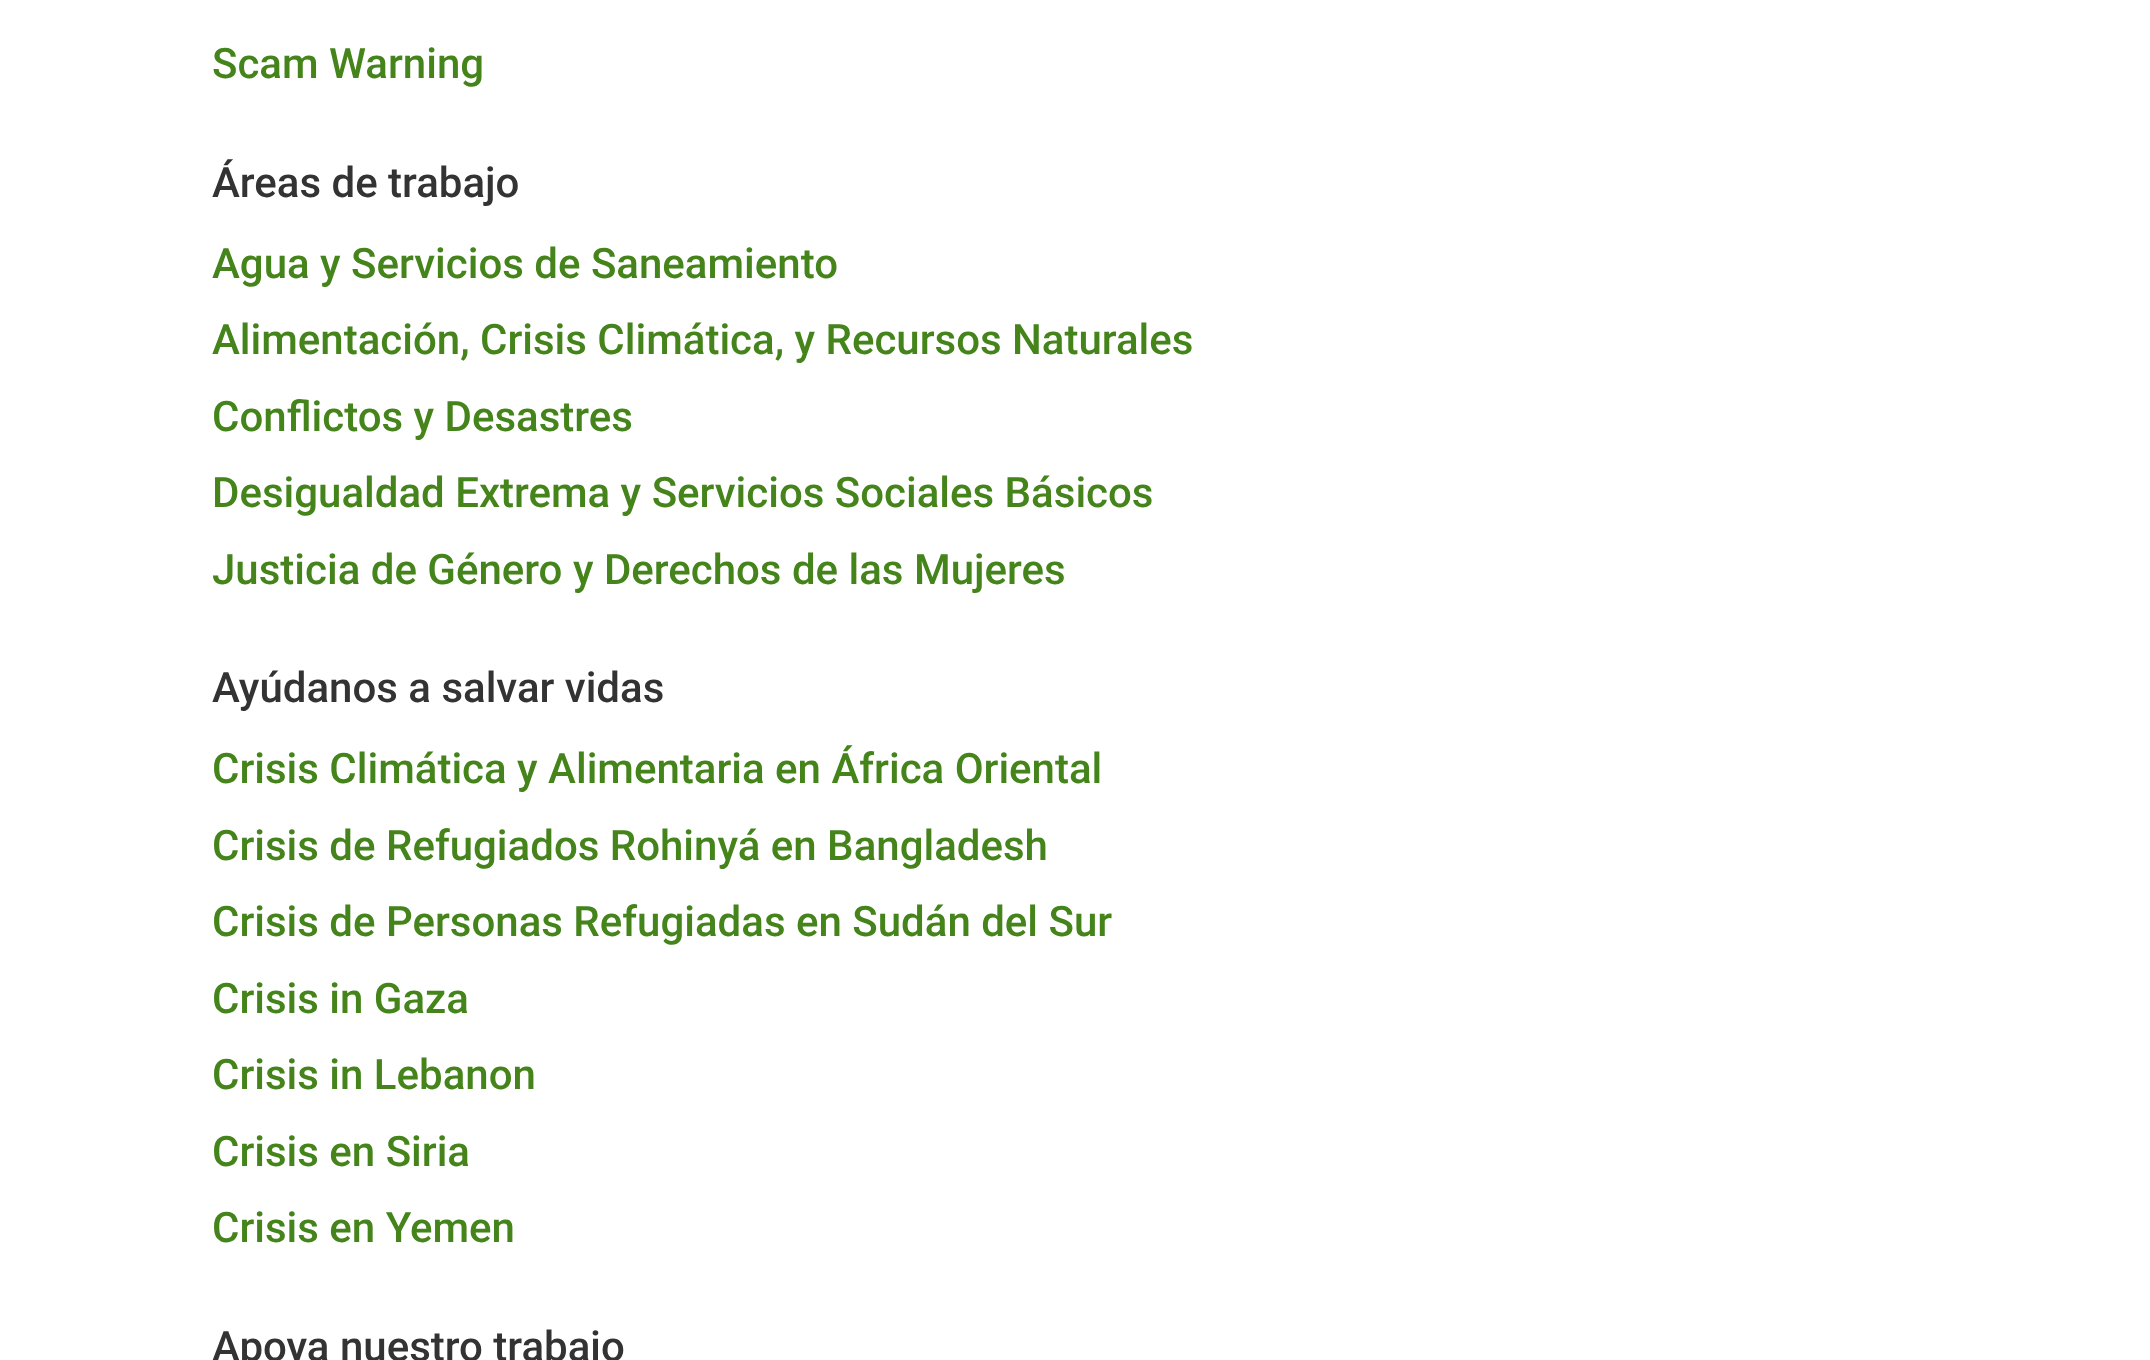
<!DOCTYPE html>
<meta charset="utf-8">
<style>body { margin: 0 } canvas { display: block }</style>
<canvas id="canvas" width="2150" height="1360"></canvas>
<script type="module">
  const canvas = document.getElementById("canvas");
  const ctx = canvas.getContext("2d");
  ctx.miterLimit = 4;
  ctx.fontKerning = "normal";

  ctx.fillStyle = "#ffffff";
  ctx.fillRect(0, 0, 2150, 1360);
  ctx.font = "500 42px Roboto";
  ctx.fillStyle = "#44841a";
  ctx.fillText("Scam Warning", 212, 78);
  ctx.fillStyle = "#333333";
  ctx.fillText("Áreas de trabajo", 212, 197);
  ctx.fillStyle = "#44841a";
  ctx.fillText("Agua y Servicios de Saneamiento", 212, 278);
  ctx.fillText("Alimentación, Crisis Climática, y Recursos Naturales", 212, 354);
  ctx.fillText("Conflictos y Desastres", 212, 431);
  ctx.fillText("Desigualdad Extrema y Servicios Sociales Básicos", 212, 507);
  ctx.fillText("Justicia de Género y Derechos de las Mujeres", 212, 584);
  ctx.fillStyle = "#333333";
  ctx.fillText("Ayúdanos a salvar vidas", 212, 702);
  ctx.fillStyle = "#44841a";
  ctx.fillText("Crisis Climática y Alimentaria en África Oriental", 212, 783);
  ctx.fillText("Crisis de Refugiados Rohinyá en Bangladesh", 212, 860);
  ctx.fillText("Crisis de Personas Refugiadas en Sudán del Sur", 212, 936);
  ctx.fillText("Crisis in Gaza", 212, 1013);
  ctx.fillText("Crisis in Lebanon", 212, 1089);
  ctx.fillText("Crisis en Siria", 212, 1166);
  ctx.fillText("Crisis en Yemen", 212, 1242);
  ctx.fillStyle = "#333333";
  ctx.fillText("Apoya nuestro trabajo", 212, 1361);
</script>
